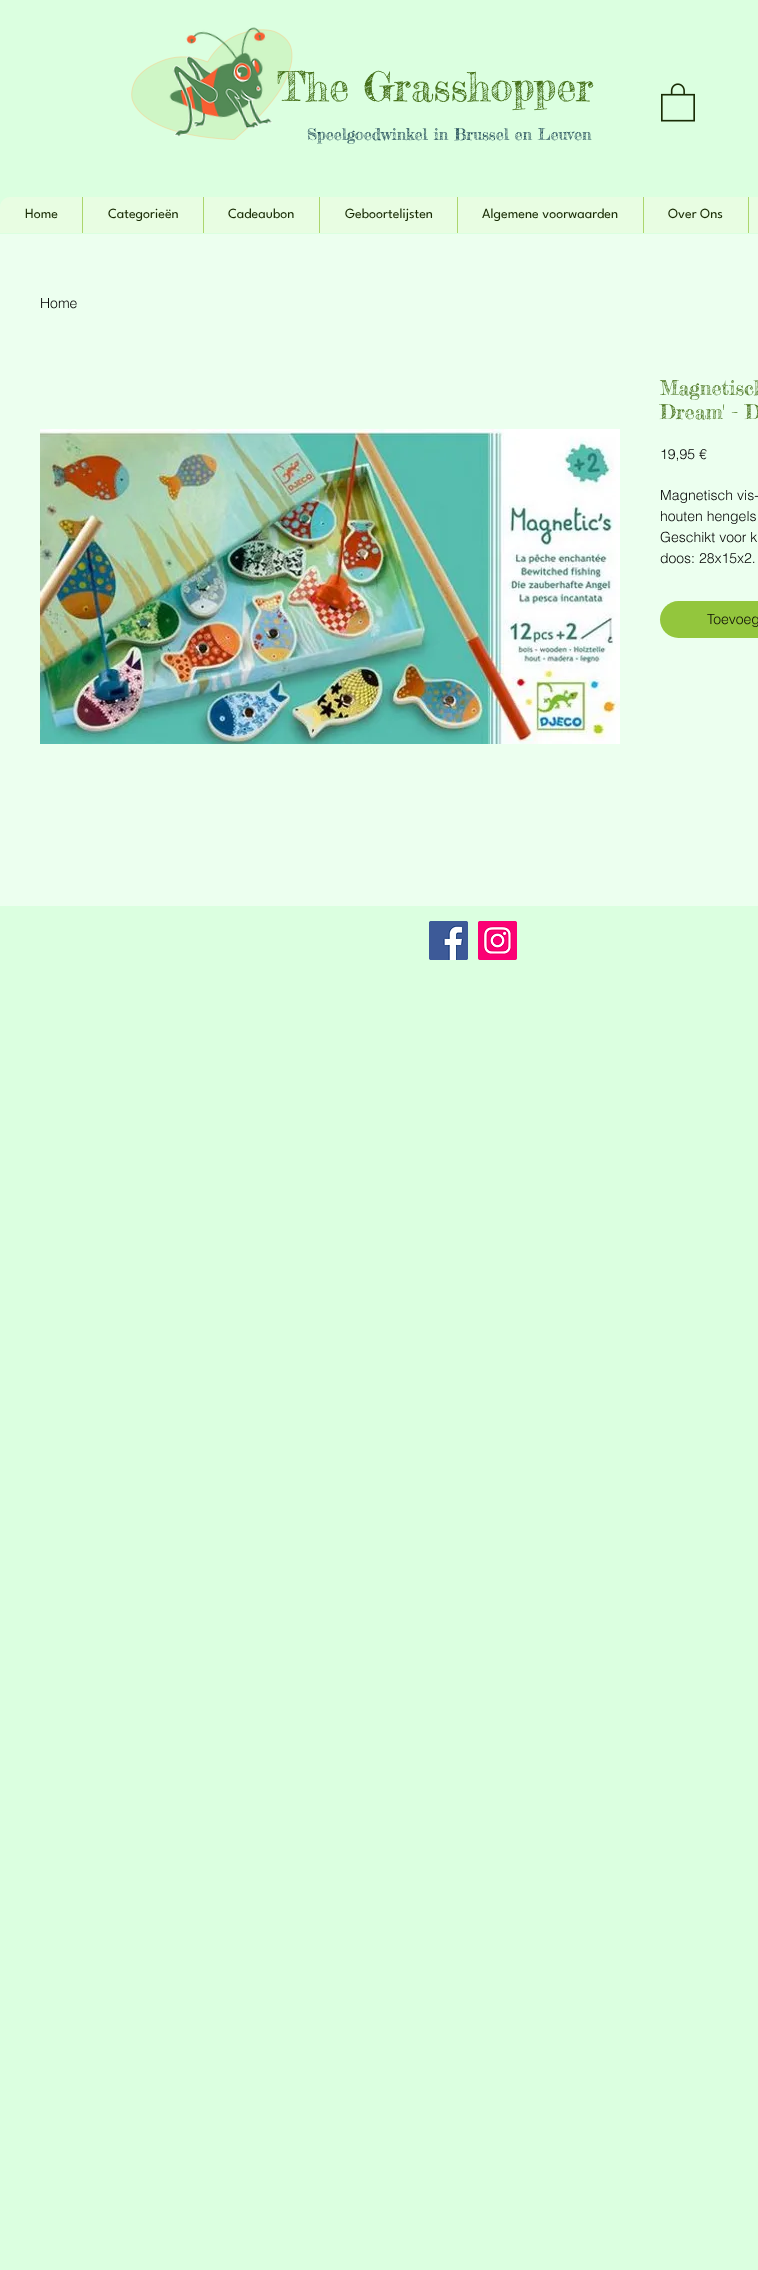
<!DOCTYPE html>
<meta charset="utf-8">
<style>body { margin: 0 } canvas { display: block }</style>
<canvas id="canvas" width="758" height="2270"></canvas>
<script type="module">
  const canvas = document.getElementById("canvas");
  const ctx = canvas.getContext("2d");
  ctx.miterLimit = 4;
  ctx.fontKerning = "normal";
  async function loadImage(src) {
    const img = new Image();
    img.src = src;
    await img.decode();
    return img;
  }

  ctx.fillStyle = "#dbffe0";
  ctx.fillRect(0, 0, 758, 2270);
  ctx.drawImage(await loadImage("img2.png"), 131, 29, 162, 111);
  ctx.drawImage(await loadImage("img1.png"), 169, 27, 104, 111);
  ctx.font = "40px Fredericka the Great";
  ctx.fillStyle = "#46711a";
  ctx.fillText("The Grasshopper", 277, 101);
  ctx.drawImage(await loadImage("img3.png"), 661, 83, 34, 39);
  ctx.font = "16px Fredericka the Great";
  ctx.fillStyle = "#0a3546";
  ctx.fillText("Speelgoedwinkel in Brussel en Leuven", 307, 140);
  ctx.fillStyle = "#e8fde2";
  ctx.beginPath();
  ctx.moveTo(10, 197);
  ctx.lineTo(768, 197);
  ctx.lineTo(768, 233);
  ctx.lineTo(0, 233);
  ctx.lineTo(0, 207);
  ctx.bezierCurveTo(0, 201.5, 4.5, 197, 10, 197);
  ctx.closePath();
  ctx.fill();
  ctx.font = "14px League Spartan";
  ctx.fillStyle = "#192c05";
  ctx.fillText("Home", 25, 218);
  ctx.fillStyle = "#acd66d";
  ctx.fillRect(82, 197, 1, 36);
  ctx.fillStyle = "#192c05";
  ctx.fillText("Categorieën", 108, 218);
  ctx.fillStyle = "#acd66d";
  ctx.fillRect(203, 197, 1, 36);
  ctx.fillStyle = "#192c05";
  ctx.fillText("Cadeaubon", 228, 218);
  ctx.fillStyle = "#acd66d";
  ctx.fillRect(319, 197, 1, 36);
  ctx.fillStyle = "#192c05";
  ctx.fillText("Geboortelijsten", 345, 218);
  ctx.fillStyle = "#acd66d";
  ctx.fillRect(457, 197, 1, 36);
  ctx.fillStyle = "#192c05";
  ctx.fillText("Algemene voorwaarden", 482, 218);
  ctx.fillStyle = "#acd66d";
  ctx.fillRect(643, 197, 1, 36);
  ctx.fillStyle = "#192c05";
  ctx.fillText("Over Ons", 668, 218);
  ctx.fillStyle = "#acd66d";
  ctx.fillRect(748, 197, 1, 36);
  ctx.fillStyle = "#ecffef";
  ctx.fillRect(0, 234, 758, 672);
  ctx.font = "300 14px helvetica";
  ctx.fillStyle = "#000000";
  ctx.fillText("Home", 40, 308);
  ctx.drawImage(await loadImage("img4.png"), 40, 429, 580, 315);
  ctx.font = "20px Fredericka the Great";
  ctx.fillStyle = "#46711a";
  ctx.fillText("Magnetisch", 660, 395);
  ctx.fillText("Dream' - D", 660, 419);
  ctx.font = "300 14px helvetica";
  ctx.fillStyle = "#000000";
  ctx.fillText("19,95 €", 660, 459);
  ctx.fillText("Magnetisch vis-", 660, 500);
  ctx.fillText("houten hengels", 660, 521);
  ctx.fillText("Geschikt voor k", 660, 542);
  ctx.fillText("doos: 28x15x2.", 660, 563);
  ctx.fillStyle = "#93c63d";
  ctx.beginPath();
  ctx.roundRect(660, 601, 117, 37, 18.5);
  ctx.fill();
  ctx.fillStyle = "#0d0c07";
  ctx.fillText("Toevoeg", 707, 624);
  ctx.drawImage(await loadImage("img5.png"), 429, 921, 39, 39);
  ctx.drawImage(await loadImage("img6.png"), 478, 921, 39, 39);
</script>
